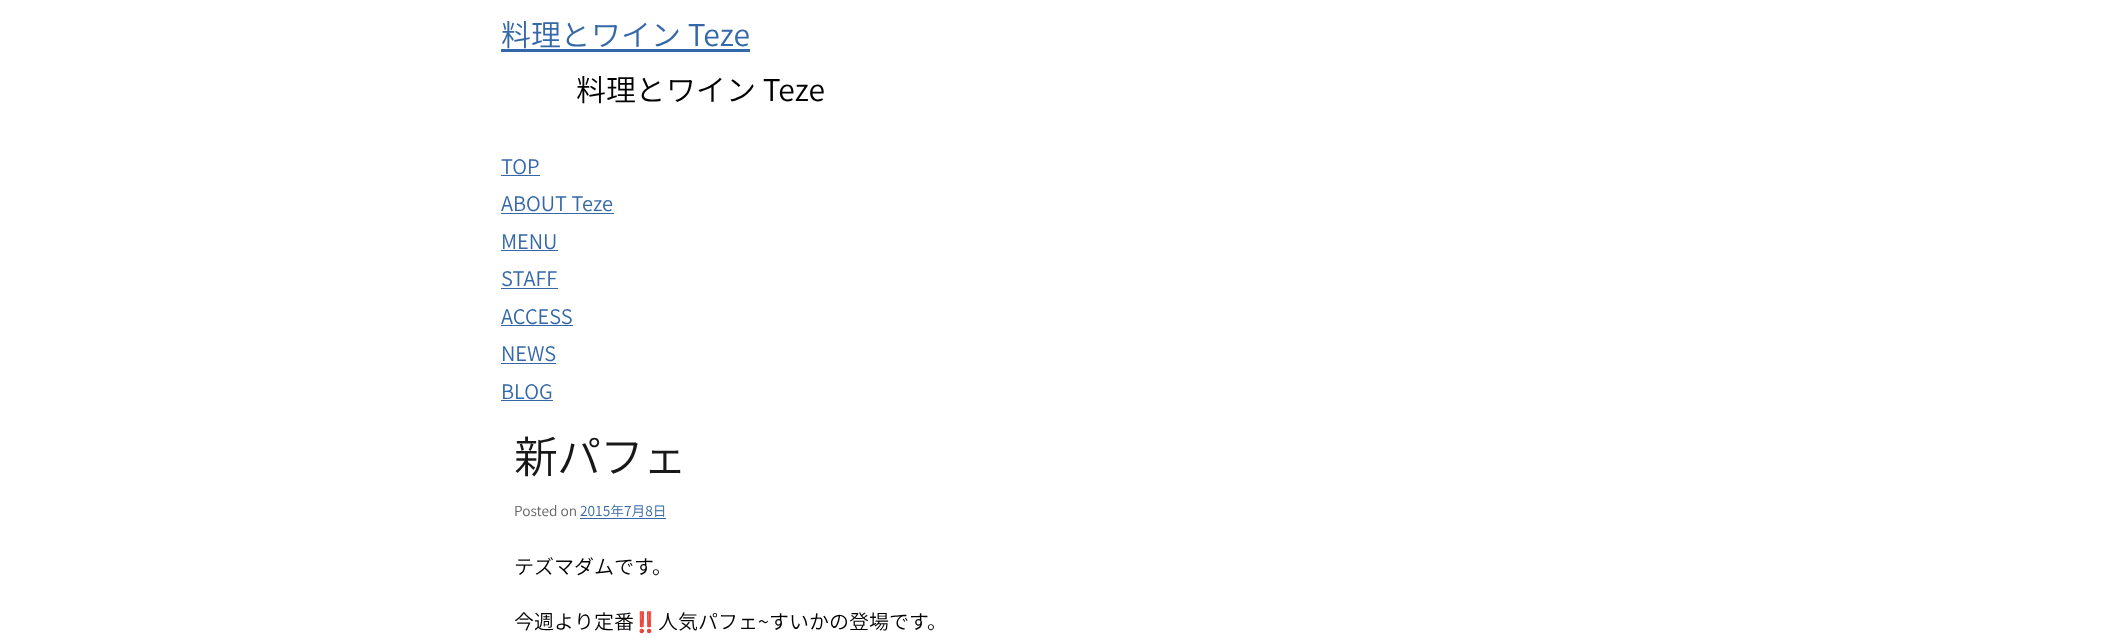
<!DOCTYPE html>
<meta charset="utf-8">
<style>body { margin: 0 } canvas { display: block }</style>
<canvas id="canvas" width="2127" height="638"></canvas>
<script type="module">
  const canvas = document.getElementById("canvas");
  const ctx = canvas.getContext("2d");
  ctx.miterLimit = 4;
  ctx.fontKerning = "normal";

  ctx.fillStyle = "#ffffff";
  ctx.fillRect(0, 0, 2127, 638);
  ctx.font = "300 30px Noto Sans JP";
  ctx.fillStyle = "#3568a9";
  ctx.fillText("料理とワイン Teze", 501, 46);
  ctx.fillRect(501, 49, 249, 3);
  ctx.fillStyle = "#000000";
  ctx.fillText("料理とワイン Teze", 576, 101);
  ctx.font = "300 20px Noto Sans JP";
  ctx.fillStyle = "#3568a9";
  ctx.fillText("TOP", 501, 174);
  ctx.fillRect(501, 175, 39, 1);
  ctx.fillText("ABOUT Teze", 501, 211);
  ctx.fillRect(501, 213, 113, 1);
  ctx.fillText("MENU", 501, 249);
  ctx.fillRect(501, 250, 57, 1);
  ctx.fillText("STAFF", 501, 286);
  ctx.fillRect(501, 288, 57, 1);
  ctx.fillText("ACCESS", 501, 324);
  ctx.fillRect(501, 325, 72, 1);
  ctx.fillText("NEWS", 501, 361);
  ctx.fillRect(501, 363, 55, 1);
  ctx.fillText("BLOG", 501, 399);
  ctx.fillRect(501, 400, 52, 1);
  ctx.letterSpacing = "-1px";
  ctx.font = "300 44px Noto Sans JP";
  ctx.fillStyle = "#181818";
  ctx.fillText("新パフェ", 514, 473);
  ctx.letterSpacing = "0px";
  ctx.font = "300 13.75px Noto Sans JP";
  ctx.fillStyle = "#666666";
  ctx.fillText("Posted on", 514, 516);
  ctx.fillStyle = "#3568a9";
  ctx.fillText("2015年7月8日", 580, 516);
  ctx.fillRect(580, 518, 86, 1);
  ctx.font = "300 20px Noto Sans JP";
  ctx.fillStyle = "#000000";
  ctx.fillText("テズマダムです。", 514, 574);
  ctx.fillText("今週より定番", 514, 629);
  ctx.font = "20px Noto Color Emoji";
  ctx.fillText("‼️", 633, 629);
  ctx.font = "300 20px Noto Sans JP";
  ctx.fillText("人気パフェ~すいかの登場です。", 658, 629);
</script>
